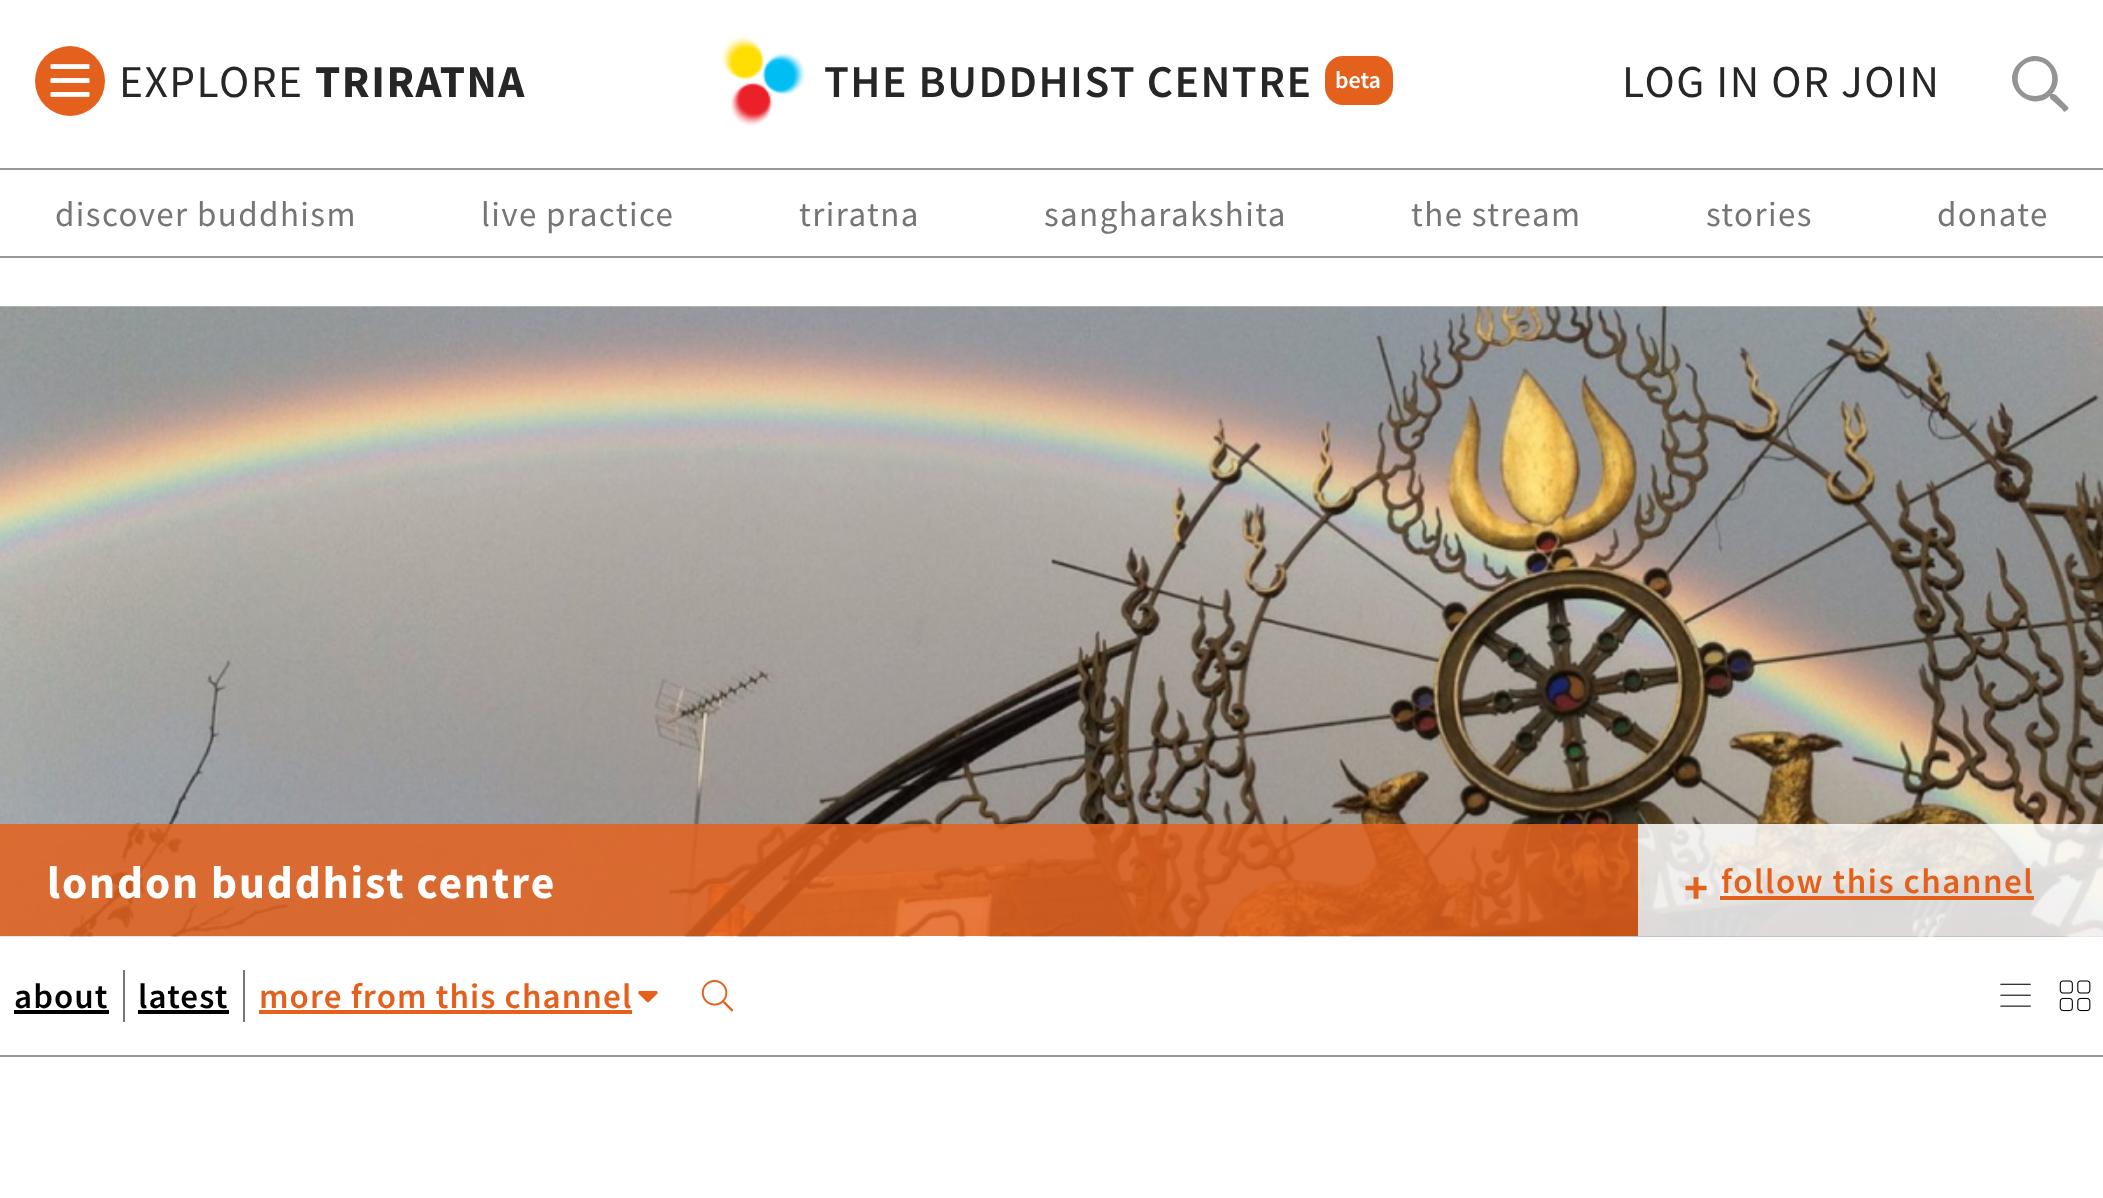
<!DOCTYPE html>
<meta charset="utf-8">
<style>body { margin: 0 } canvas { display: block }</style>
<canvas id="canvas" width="2103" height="1198"></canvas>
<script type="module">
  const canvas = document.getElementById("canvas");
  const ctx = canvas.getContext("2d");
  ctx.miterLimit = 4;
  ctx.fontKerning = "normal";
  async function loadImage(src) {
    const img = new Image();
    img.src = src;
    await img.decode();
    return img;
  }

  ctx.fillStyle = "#ffffff";
  ctx.fillRect(0, 0, 2103, 1198);
  ctx.fillStyle = "#e4611d";
  ctx.beginPath();
  ctx.arc(70, 81, 35, 0, Math.PI * 2);
  ctx.fill();
  ctx.drawImage(await loadImage("img1.png"), 50, 64, 40, 33);
  ctx.letterSpacing = "1.5px";
  ctx.font = "45.5px Source Sans Pro";
  ctx.fillStyle = "#262626";
  ctx.fillText("EXPLORE", 119, 97);
  ctx.font = "bold 45.5px Source Sans Pro";
  ctx.fillText("TRIRATNA", 315, 97);
  ctx.drawImage(await loadImage("img2.png"), 721, 36, 84, 90);
  ctx.font = "600 45.5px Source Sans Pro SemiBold";
  ctx.fillText("THE BUDDHIST CENTRE", 824, 97);
  ctx.fillStyle = "#e4611d";
  ctx.beginPath();
  ctx.roundRect(1325, 56, 68, 49, 18);
  ctx.fill();
  ctx.letterSpacing = "0px";
  ctx.font = "600 24px Source Sans Pro SemiBold";
  ctx.fillStyle = "#ffffff";
  ctx.fillText("beta", 1335, 88);
  ctx.letterSpacing = "1.5px";
  ctx.font = "45.5px Source Sans Pro";
  ctx.fillStyle = "#262626";
  ctx.fillText("LOG IN OR JOIN", 1622, 97);
  ctx.fillStyle = "#949494";
  ctx.beginPath();
  ctx.moveTo(2068, 107);
  ctx.lineTo(2059, 98);
  ctx.bezierCurveTo(2056, 95, 2056, 94, 2052, 94);
  ctx.bezierCurveTo(2071, 72, 2040, 42, 2019, 63);
  ctx.bezierCurveTo(1998, 83, 2029, 114, 2050, 96);
  ctx.bezierCurveTo(2050, 99, 2050, 98, 2053, 101);
  ctx.lineTo(2062, 109);
  ctx.bezierCurveTo(2064, 112, 2064, 113, 2067, 110);
  ctx.bezierCurveTo(2068, 110, 2069, 108, 2068, 107);
  ctx.closePath();
  ctx.moveTo(2035, 96);
  ctx.bezierCurveTo(2012, 96, 2012, 61, 2035, 61);
  ctx.bezierCurveTo(2058, 61, 2058, 96, 2035, 96);
  ctx.closePath();
  ctx.fill();
  ctx.fillStyle = "#979797";
  ctx.fillRect(0, 168, 2103, 2);
  ctx.fillRect(0, 256, 2103, 2);
  ctx.letterSpacing = "1.4px";
  ctx.font = "35px Source Sans Pro";
  ctx.fillStyle = "#757575";
  ctx.fillText("discover buddhism", 55, 226);
  ctx.fillText("live practice", 481, 226);
  ctx.fillText("triratna", 799, 226);
  ctx.fillText("sangharakshita", 1044, 226);
  ctx.fillText("the stream", 1411, 226);
  ctx.fillText("stories", 1706, 226);
  ctx.fillText("donate", 1937, 226);
  ctx.drawImage(await loadImage("img3.png"), 0, 306, 2103, 631);
  ctx.fillStyle = "rgba(228, 97, 29, 0.85)";
  ctx.fillRect(0, 824, 1638, 112);
  ctx.letterSpacing = "1.9px";
  ctx.font = "bold 45.5px Source Sans Pro";
  ctx.fillStyle = "#ffffff";
  ctx.fillText("london buddhist centre", 47, 898);
  ctx.fillStyle = "rgba(255, 255, 255, 0.85)";
  ctx.fillRect(1638, 824, 465, 112);
  ctx.fillStyle = "#e4611d";
  ctx.fillText("+", 1684, 903);
  ctx.letterSpacing = "1.5px";
  ctx.font = "600 35px Source Sans Pro SemiBold";
  ctx.fillText("follow this channel", 1721, 893);
  ctx.fillRect(1720, 896, 314, 4);
  ctx.fillStyle = "#979797";
  ctx.fillRect(0, 1055, 2103, 2);
  ctx.fillStyle = "#757575";
  ctx.fillRect(123, 970, 2, 52);
  ctx.letterSpacing = "1.1px";
  ctx.fillStyle = "#000000";
  ctx.fillText("about", 14, 1008);
  ctx.fillRect(14, 1010, 95, 4);
  ctx.fillStyle = "#757575";
  ctx.fillRect(243, 970, 2, 52);
  ctx.fillStyle = "#000000";
  ctx.fillText("latest", 138, 1008);
  ctx.fillRect(138, 1010, 91, 4);
  ctx.fillStyle = "#e4611d";
  ctx.fillText("more from this channel", 259, 1008);
  ctx.fillRect(259, 1010, 373, 4);
  ctx.drawImage(await loadImage("img4.png"), 638, 990, 20, 13);
  ctx.drawImage(await loadImage("img5.png"), 701, 980, 33, 32);
  ctx.drawImage(await loadImage("img6.png"), 2000, 983, 31, 24);
  ctx.drawImage(await loadImage("img7.png"), 2059, 980, 32, 32);
</script>
